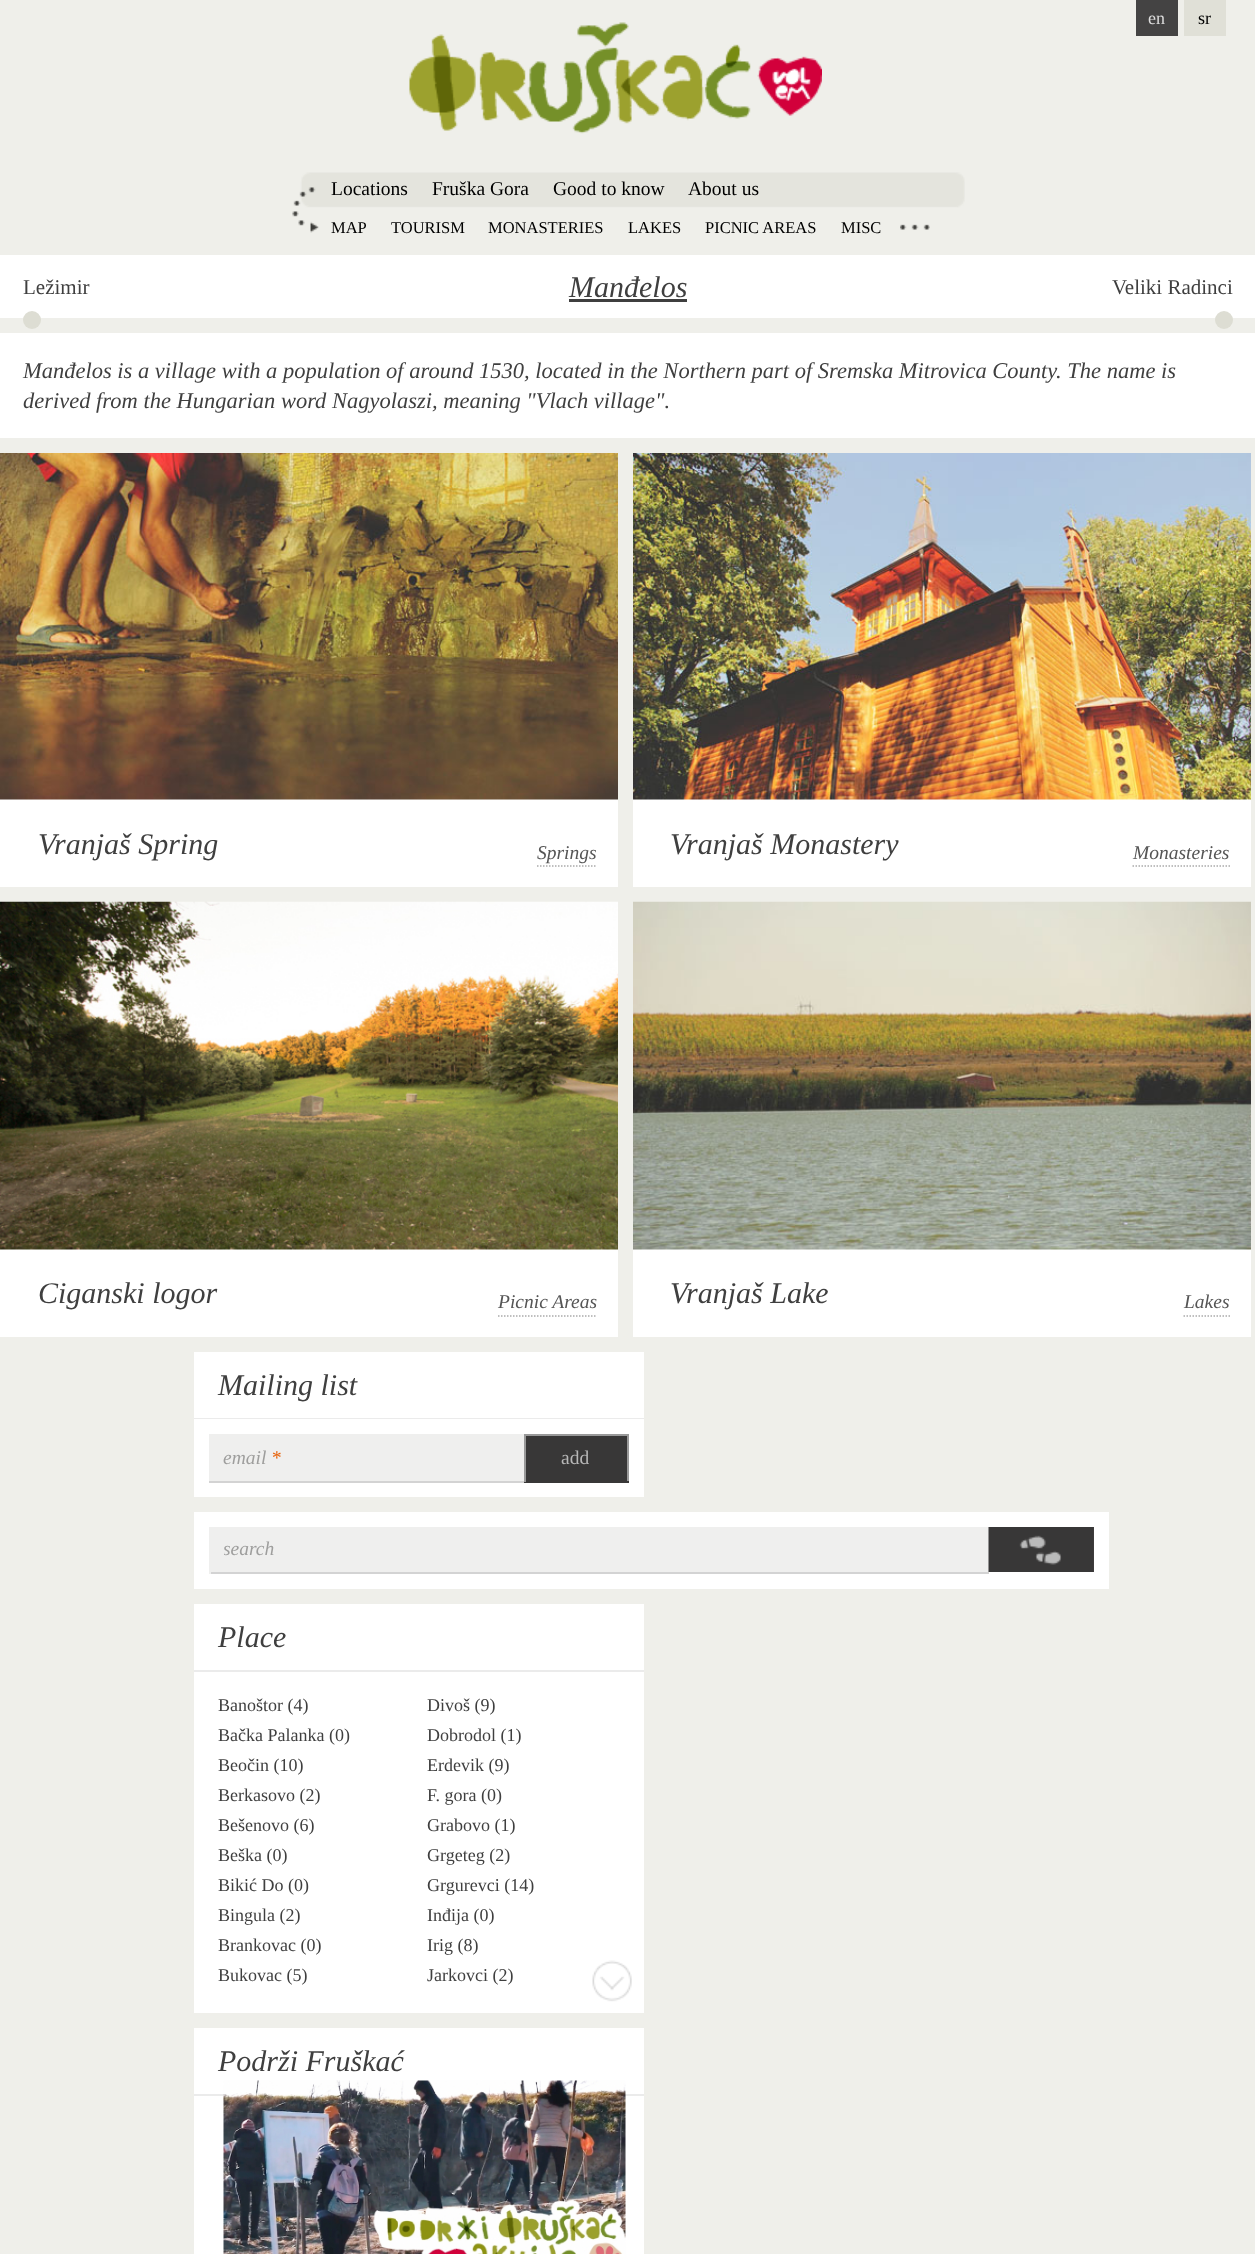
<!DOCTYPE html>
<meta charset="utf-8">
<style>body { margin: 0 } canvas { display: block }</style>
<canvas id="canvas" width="1255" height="2254"></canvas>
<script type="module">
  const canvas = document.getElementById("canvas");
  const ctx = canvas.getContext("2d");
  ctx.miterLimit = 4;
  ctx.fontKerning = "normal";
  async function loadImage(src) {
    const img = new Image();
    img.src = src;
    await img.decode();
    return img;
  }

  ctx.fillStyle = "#efefea";
  ctx.fillRect(0, 0, 1255, 2254);
  ctx.fillStyle = "#444343";
  ctx.fillRect(1136, 0, 42, 36);
  ctx.font = "18px Liberation Serif";
  ctx.fillStyle = "#dddddd";
  ctx.fillText("en", 1148, 24);
  ctx.fillStyle = "#e0e0d7";
  ctx.fillRect(1184, 0, 42, 36);
  ctx.fillStyle = "#000000";
  ctx.fillText("sr", 1198, 24);
  ctx.drawImage(await loadImage("img1.png"), 409, 22, 413, 112);
  ctx.drawImage(await loadImage("img2.png"), 292, 172, 673, 61);
  ctx.font = "19.5px Liberation Serif";
  ctx.fillText("Fruška Gora", 432, 195);
  ctx.fillText("Good to know", 553, 195);
  ctx.fillText("About us", 688, 195);
  ctx.fillText("Locations", 331, 195);
  ctx.font = "16.5px Liberation Serif";
  ctx.fillText("MAP", 331, 233);
  ctx.fillText("TOURISM", 391, 233);
  ctx.fillText("MONASTERIES", 488, 233);
  ctx.fillText("LAKES", 628, 233);
  ctx.fillText("PICNIC AREAS", 705, 233);
  ctx.fillText("MISC", 841, 233);
  ctx.drawImage(await loadImage("img3.png"), 900, 224, 30, 6);
  ctx.fillStyle = "#ffffff";
  ctx.fillRect(0, 255, 1255, 63);
  ctx.font = "21px Liberation Serif";
  ctx.fillStyle = "#3f3f3f";
  ctx.fillText("Ležimir", 23, 294);
  ctx.fillStyle = "#ddddd3";
  ctx.beginPath();
  ctx.arc(32, 320, 9, 0, Math.PI * 2);
  ctx.fill();
  ctx.font = "italic 30px Liberation Serif";
  ctx.fillStyle = "#3f3f3f";
  ctx.fillText("Manđelos", 569, 297);
  ctx.fillRect(569, 299, 118, 3);
  ctx.font = "21px Liberation Serif";
  ctx.fillText("Veliki Radinci", 1112, 294);
  ctx.fillStyle = "#ddddd3";
  ctx.beginPath();
  ctx.arc(1224, 320, 9, 0, Math.PI * 2);
  ctx.fill();
  ctx.fillStyle = "#ffffff";
  ctx.fillRect(0, 333, 1255, 105);
  ctx.font = "italic 22.5px Liberation Serif";
  ctx.fillStyle = "#3f3f3f";
  ctx.fillText("Manđelos is a village with a population of around 1530, located in the Northern part of Sremska Mitrovica County. The name is", 23, 378);
  ctx.fillText("derived from the Hungarian word Nagyolaszi, meaning \"Vlach village\".", 23, 408);
  ctx.fillStyle = "#ffffff";
  ctx.fillRect(0, 799, 618, 88);
  ctx.drawImage(await loadImage("img4.png"), 0, 453, 618, 347);
  ctx.font = "italic 30px Liberation Serif";
  ctx.fillStyle = "#3f3f3f";
  ctx.fillText("Vranjaš Spring", 38, 854);
  ctx.beginPath();
  ctx.moveTo(537, 866);
  ctx.lineTo(597, 866);
  ctx.strokeStyle = "#aaaaaa";
  ctx.lineWidth = 1.5;
  ctx.setLineDash([1.5, 1.5]);
  ctx.stroke();
  ctx.font = "italic 19.5px Liberation Serif";
  ctx.fillStyle = "#555555";
  ctx.fillText("Springs", 537, 859);
  ctx.fillStyle = "#ffffff";
  ctx.fillRect(633, 799, 618, 88);
  ctx.drawImage(await loadImage("img5.png"), 633, 453, 618, 347);
  ctx.font = "italic 30px Liberation Serif";
  ctx.fillStyle = "#3f3f3f";
  ctx.fillText("Vranjaš Monastery", 670, 854);
  ctx.beginPath();
  ctx.moveTo(1132.5, 866);
  ctx.lineTo(1230, 866);
  ctx.stroke();
  ctx.font = "italic 19.5px Liberation Serif";
  ctx.fillStyle = "#555555";
  ctx.fillText("Monasteries", 1133, 859);
  ctx.fillStyle = "#ffffff";
  ctx.fillRect(0, 1249, 618, 88);
  ctx.drawImage(await loadImage("img6.png"), 0, 901, 618, 349);
  ctx.font = "italic 30px Liberation Serif";
  ctx.fillStyle = "#3f3f3f";
  ctx.fillText("Ciganski logor", 38, 1303);
  ctx.beginPath();
  ctx.moveTo(498, 1316);
  ctx.lineTo(597, 1316);
  ctx.stroke();
  ctx.font = "italic 19.5px Liberation Serif";
  ctx.fillStyle = "#555555";
  ctx.fillText("Picnic Areas", 498, 1308);
  ctx.fillStyle = "#ffffff";
  ctx.fillRect(633, 1249, 618, 88);
  ctx.drawImage(await loadImage("img7.png"), 633, 901, 618, 349);
  ctx.font = "italic 30px Liberation Serif";
  ctx.fillStyle = "#3f3f3f";
  ctx.fillText("Vranjaš Lake", 670, 1303);
  ctx.beginPath();
  ctx.moveTo(1183.5, 1316);
  ctx.lineTo(1230, 1316);
  ctx.stroke();
  ctx.font = "italic 19.5px Liberation Serif";
  ctx.fillStyle = "#555555";
  ctx.fillText("Lakes", 1184, 1308);
  ctx.fillStyle = "#ffffff";
  ctx.fillRect(194, 1352, 450, 145);
  ctx.fillStyle = "#ebebeb";
  ctx.fillRect(194, 1418, 450, 1);
  ctx.font = "italic 30px Liberation Serif";
  ctx.fillStyle = "#3f3f3f";
  ctx.fillText("Mailing list", 218, 1395);
  ctx.fillStyle = "#efefee";
  ctx.fillRect(209, 1434, 315, 47);
  ctx.fillStyle = "#d3d3d3";
  ctx.fillRect(209, 1481, 315, 2);
  ctx.font = "italic 19.5px Liberation Serif";
  ctx.fillStyle = "#9e9e9d";
  ctx.fillText("email", 223, 1464);
  ctx.fillStyle = "#e76108";
  ctx.fillText("*", 271, 1464);
  ctx.fillStyle = "#383737";
  ctx.fillRect(526, 1436, 101, 45);
  ctx.fillStyle = "#999999";
  ctx.fillRect(524, 1434, 105, 2);
  ctx.fillRect(627, 1434, 2, 48);
  ctx.fillStyle = "#383737";
  ctx.fillRect(524, 1481, 105, 2);
  ctx.fillStyle = "#999999";
  ctx.fillRect(524, 1434, 2, 48);
  ctx.font = "19.5px Liberation Serif";
  ctx.fillStyle = "#b7b7b7";
  ctx.fillText("add", 561, 1464);
  ctx.fillStyle = "#ffffff";
  ctx.fillRect(194, 1512, 915, 77);
  ctx.fillStyle = "#efefee";
  ctx.fillRect(211, 1527, 778, 45);
  ctx.fillStyle = "#d3d3d3";
  ctx.fillRect(209, 1572, 780, 2);
  ctx.fillStyle = "#efefee";
  ctx.fillRect(209, 1527, 2, 47);
  ctx.save();
  ctx.beginPath();
  ctx.rect(224, 1538, 300, 30);
  ctx.clip();
  ctx.font = "italic 19.5px Liberation Serif";
  ctx.fillStyle = "#9e9e9d";
  ctx.fillText("search", 223, 1555);
  ctx.restore();
  ctx.fillStyle = "#444343";
  ctx.fillRect(1093, 1527, 1, 45);
  ctx.drawImage(await loadImage("img8.png"), 988, 1527, 106, 45);
  ctx.fillStyle = "#ffffff";
  ctx.fillRect(194, 1604, 450, 409);
  ctx.fillStyle = "#ebebeb";
  ctx.fillRect(194, 1670, 450, 2);
  ctx.font = "italic 30px Liberation Serif";
  ctx.fillStyle = "#3f3f3f";
  ctx.fillText("Place", 218, 1647);
  ctx.font = "18px Liberation Serif";
  ctx.fillText("Banoštor (4)", 218, 1711);
  ctx.fillText("Divoš (9)", 427, 1711);
  ctx.fillText("Bačka Palanka (0)", 218, 1741);
  ctx.fillText("Dobrodol (1)", 427, 1741);
  ctx.fillText("Beočin (10)", 218, 1771);
  ctx.fillText("Erdevik (9)", 427, 1771);
  ctx.fillText("Berkasovo (2)", 218, 1801);
  ctx.fillText("F. gora (0)", 427, 1801);
  ctx.fillText("Bešenovo (6)", 218, 1831);
  ctx.fillText("Grabovo (1)", 427, 1831);
  ctx.fillText("Beška (0)", 218, 1861);
  ctx.fillText("Grgeteg (2)", 427, 1861);
  ctx.fillText("Bikić Do (0)", 218, 1891);
  ctx.fillText("Grgurevci (14)", 427, 1891);
  ctx.fillText("Bingula (2)", 218, 1921);
  ctx.fillText("Inđija (0)", 427, 1921);
  ctx.fillText("Brankovac (0)", 218, 1951);
  ctx.fillText("Irig (8)", 427, 1951);
  ctx.fillText("Bukovac (5)", 218, 1981);
  ctx.fillText("Jarkovci (2)", 427, 1981);
  ctx.drawImage(await loadImage("img9.png"), 592, 1960, 40, 42);
  ctx.fillStyle = "#ffffff";
  ctx.fillRect(194, 2028, 450, 226);
  ctx.fillStyle = "#ebebeb";
  ctx.fillRect(194, 2094, 450, 2);
  ctx.font = "italic 30px Liberation Serif";
  ctx.fillStyle = "#3f3f3f";
  ctx.fillText("Podrži Fruškać", 218, 2071);
  ctx.drawImage(await loadImage("img10.png"), 223, 2080, 403, 174);
</script>
